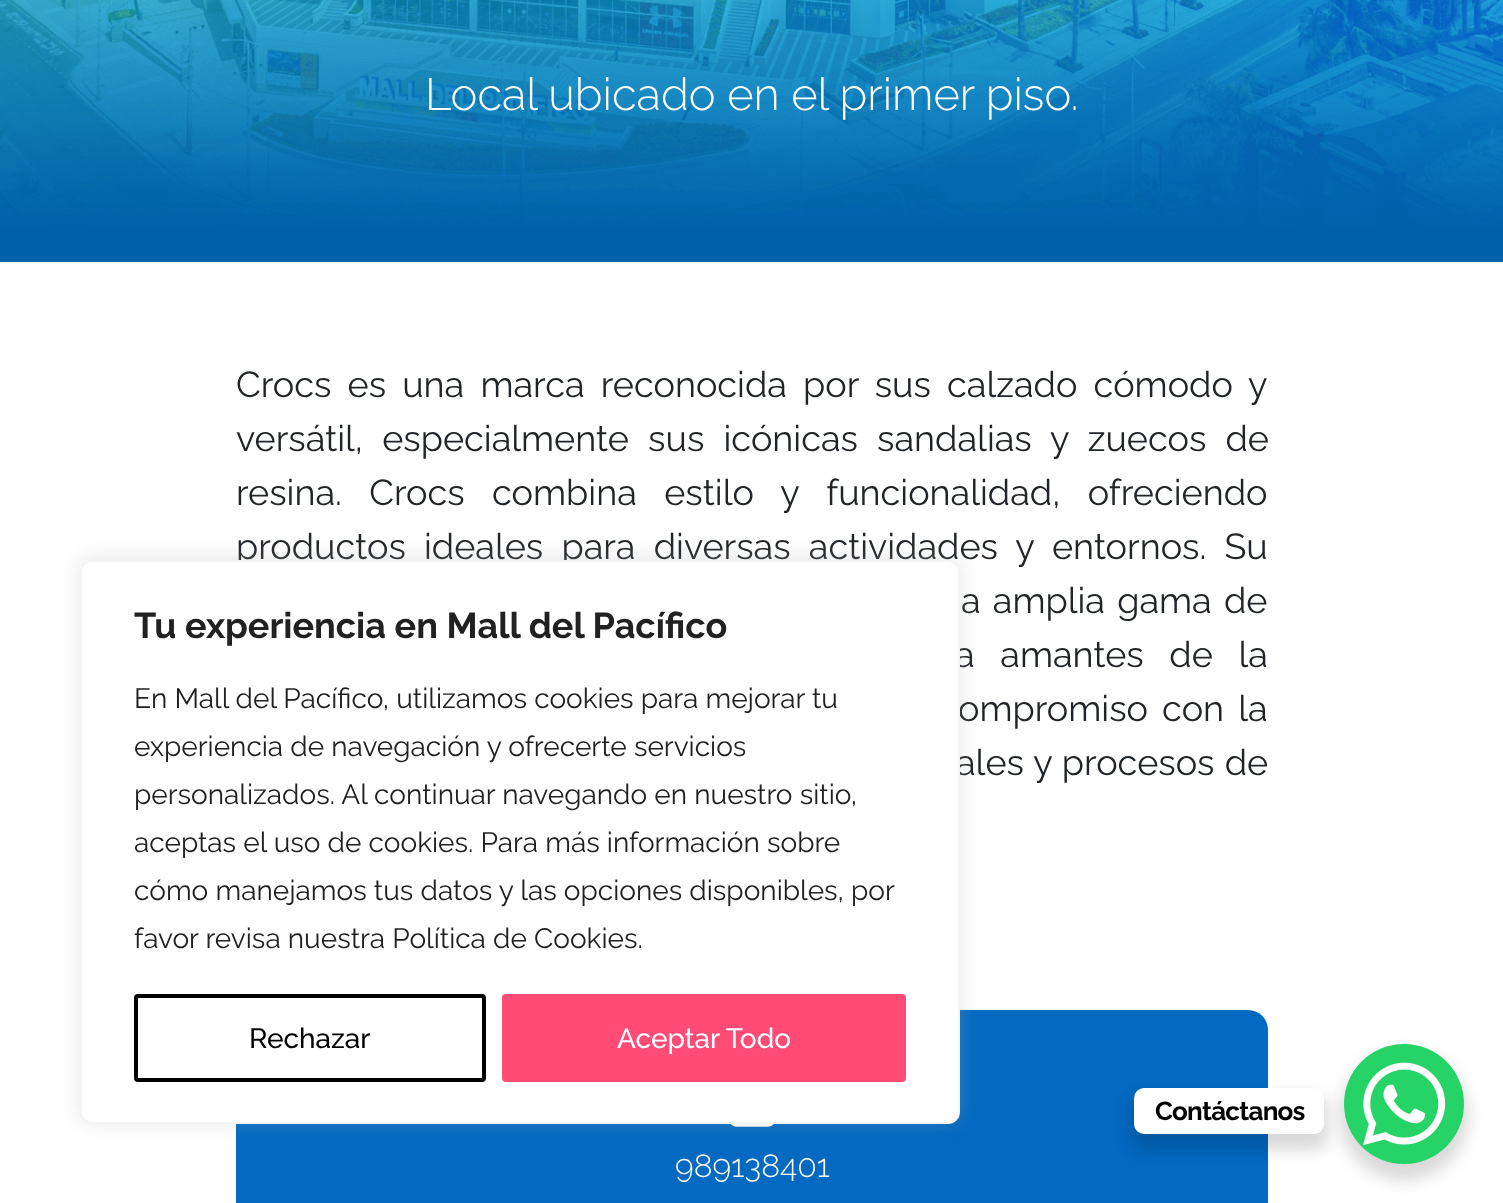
<!DOCTYPE html>
<meta charset="utf-8">
<style>body { margin: 0 } canvas { display: block }</style>
<canvas id="canvas" width="1503" height="1203"></canvas>
<script type="module">
  const canvas = document.getElementById("canvas");
  const ctx = canvas.getContext("2d");
  ctx.miterLimit = 4;
  ctx.fontKerning = "normal";
  async function loadImage(src) {
    const img = new Image();
    img.src = src;
    await img.decode();
    return img;
  }

  ctx.fillStyle = "#ffffff";
  ctx.fillRect(0, 0, 1503, 1203);
  ctx.drawImage(await loadImage("img1.png"), 0, 0, 1503, 262);
  ctx.font = "300 45.25px Raleway";
  ctx.fillText("Local ubicado en el primer piso.", 425, 110);
  ctx.wordSpacing = "7px";
  ctx.font = "36px Raleway";
  ctx.fillStyle = "#212529";
  ctx.fillText("Crocs es una marca reconocida por sus calzado cómodo y", 236, 397);
  ctx.wordSpacing = "10px";
  ctx.fillText("versátil, especialmente sus icónicas sandalias y zuecos de", 236, 451);
  ctx.wordSpacing = "18.25px";
  ctx.fillText("resina. Crocs combina estilo y funcionalidad, ofreciendo", 236, 505);
  ctx.wordSpacing = "9px";
  ctx.fillText("productos ideales para diversas actividades y entornos. Su", 236, 559);
  ctx.wordSpacing = "3px";
  ctx.fillText("a amplia gama de", 961, 613);
  ctx.wordSpacing = "16.5px";
  ctx.fillText("a amantes de la", 955, 667);
  ctx.wordSpacing = "5px";
  ctx.fillText("ompromiso con la", 958, 721);
  ctx.wordSpacing = "1px";
  ctx.fillText("ales y procesos de", 956, 775);
  ctx.fillStyle = "#0369c1";
  ctx.beginPath();
  ctx.roundRect(236, 1010, 1032, 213, 20);
  ctx.fill();
  ctx.drawImage(await loadImage("img2.png"), 730, 1124, 44, 3);
  ctx.wordSpacing = "0px";
  ctx.font = "300 32px Raleway";
  ctx.fillStyle = "#ffffff";
  ctx.fillText("989138401", 675, 1177);
  ctx.fillStyle = "rgba(0, 0, 0, 0.15)";
  ctx.filter = "blur(8px)";
  ctx.beginPath();
  ctx.roundRect(1340, 1052, 128, 128, 64);
  ctx.fill();
  ctx.filter = "none";
  ctx.fillStyle = "#25d366";
  ctx.beginPath();
  ctx.arc(1404, 1104, 60, 0, Math.PI * 2);
  ctx.fill();
  ctx.fillStyle = "rgba(0, 0, 0, 0.15)";
  ctx.filter = "blur(8px)";
  ctx.beginPath();
  ctx.roundRect(1130, 1096, 198, 54, 14);
  ctx.fill();
  ctx.filter = "none";
  ctx.fillStyle = "#ffffff";
  ctx.beginPath();
  ctx.roundRect(1134, 1088, 190, 46, 10);
  ctx.fill();
  ctx.letterSpacing = "-0.75px";
  ctx.font = "bold 26px Raleway";
  ctx.fillStyle = "#000000";
  ctx.fillText("Contáctanos", 1155, 1120);
  ctx.drawImage(await loadImage("img3.png"), 1363, 1062, 83, 84);
  ctx.fillStyle = "rgba(172, 171, 171, 0.3)";
  ctx.filter = "blur(10px)";
  ctx.beginPath();
  ctx.roundRect(80, 558, 880, 564, 12);
  ctx.fill();
  ctx.filter = "none";
  ctx.fillStyle = "#ffffff";
  ctx.beginPath();
  ctx.roundRect(81, 561, 878, 562, 11);
  ctx.fill();
  ctx.strokeStyle = "#f4f4f4";
  ctx.lineWidth = 2;
  ctx.stroke();
  ctx.letterSpacing = "0px";
  ctx.font = "bold 36px Raleway";
  ctx.fillStyle = "#212121";
  ctx.fillText("Tu experiencia en Mall del Pacífico", 134, 638);
  ctx.font = "28px Raleway";
  ctx.fillText("En Mall del Pacífico, utilizamos cookies para mejorar tu", 134, 708);
  ctx.fillText("experiencia de navegación y ofrecerte servicios", 134, 756);
  ctx.fillText("personalizados. Al continuar navegando en nuestro sitio,", 134, 804);
  ctx.fillText("aceptas el uso de cookies. Para más información sobre", 134, 852);
  ctx.fillText("cómo manejamos tus datos y las opciones disponibles, por", 134, 900);
  ctx.fillText("favor revisa nuestra Política de Cookies.", 134, 948);
  ctx.beginPath();
  ctx.roundRect(136, 996, 348, 84, 2);
  ctx.strokeStyle = "#000000";
  ctx.lineWidth = 4;
  ctx.stroke();
  ctx.font = "500 28px Raleway";
  ctx.fillStyle = "#000000";
  ctx.fillText("Rechazar", 249, 1048);
  ctx.fillStyle = "#ff4b76";
  ctx.beginPath();
  ctx.roundRect(504, 996, 400, 84, 2);
  ctx.fill();
  ctx.strokeStyle = "#ff4b76";
  ctx.stroke();
  ctx.fillStyle = "#ffffff";
  ctx.fillText("Aceptar Todo", 617, 1048);
</script>
